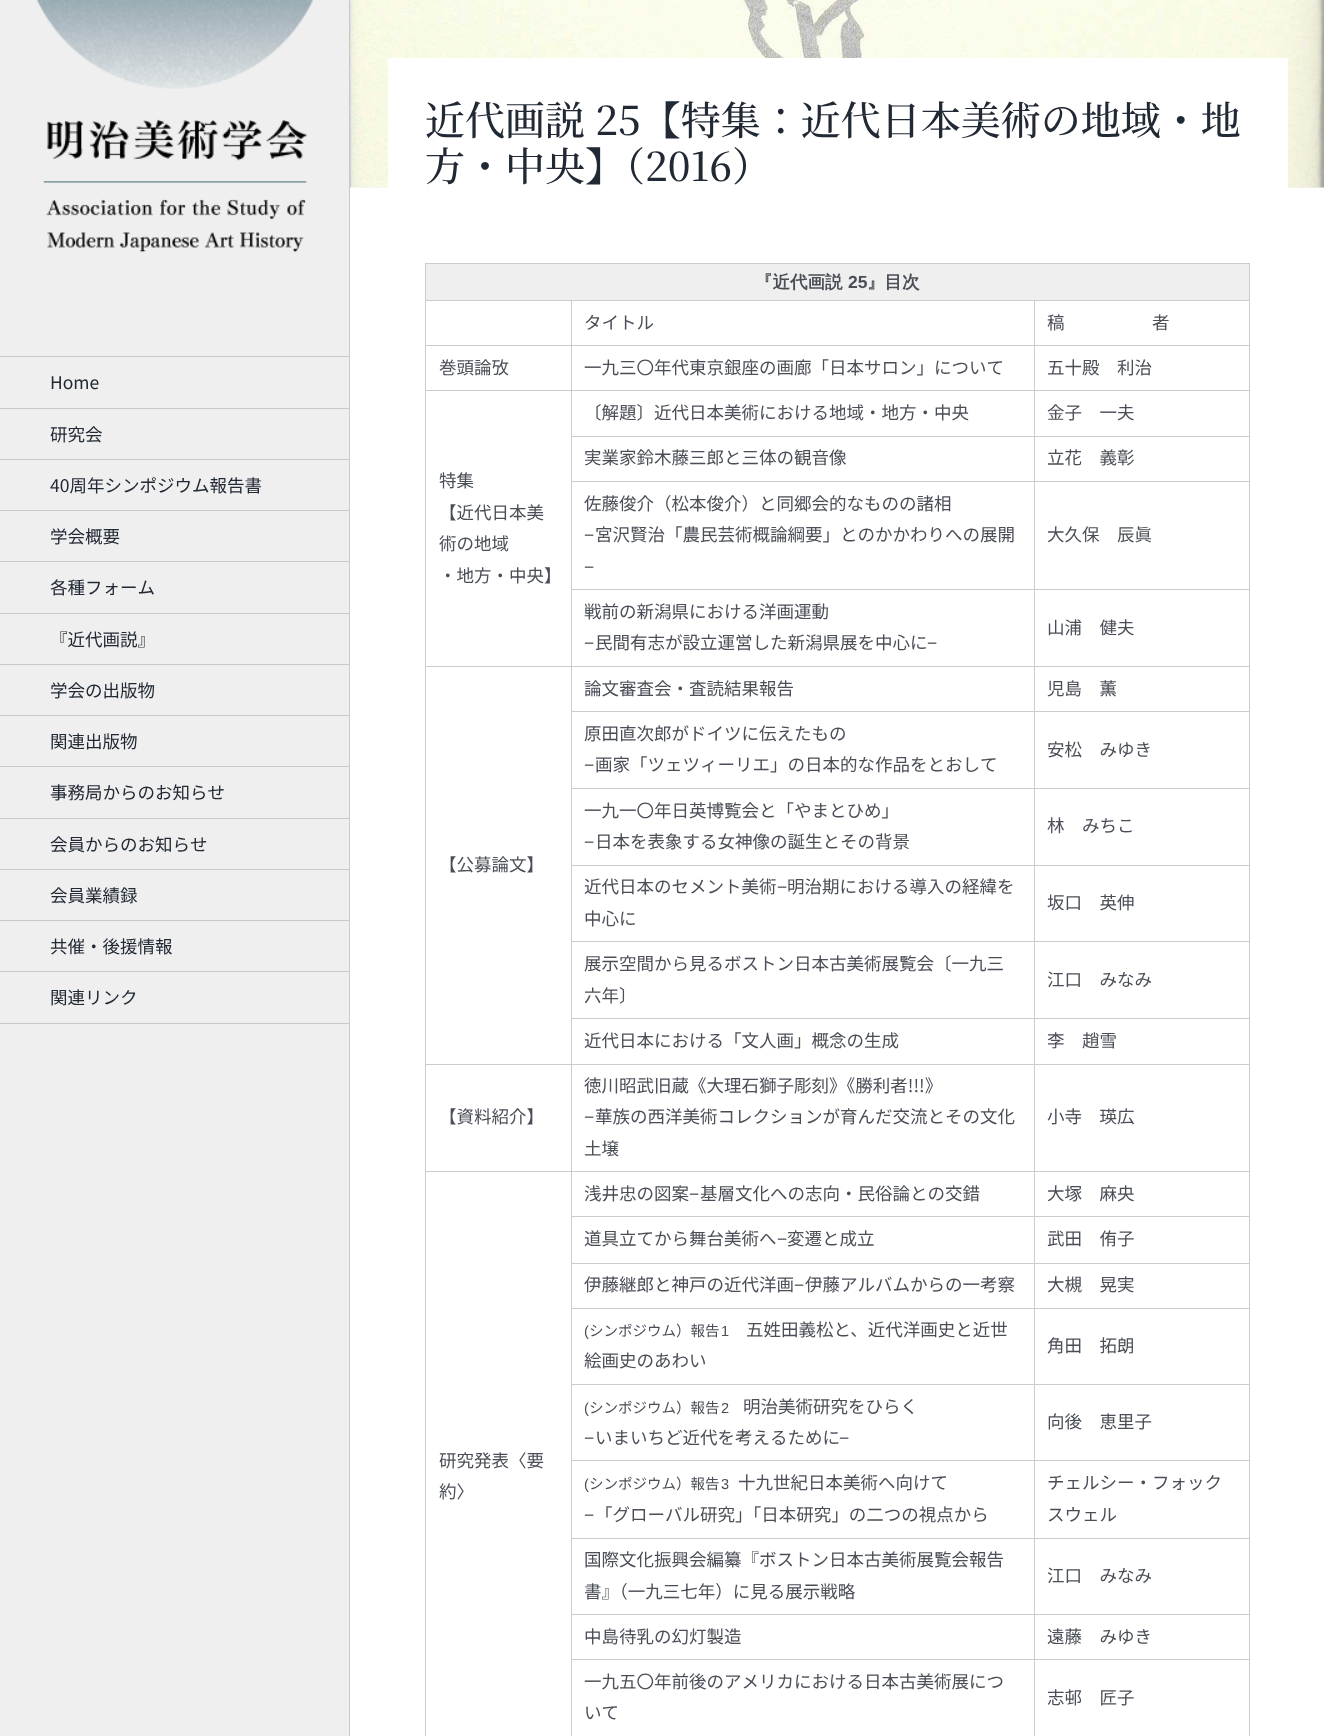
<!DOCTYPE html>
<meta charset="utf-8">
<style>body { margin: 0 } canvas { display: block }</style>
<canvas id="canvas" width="1324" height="1736"></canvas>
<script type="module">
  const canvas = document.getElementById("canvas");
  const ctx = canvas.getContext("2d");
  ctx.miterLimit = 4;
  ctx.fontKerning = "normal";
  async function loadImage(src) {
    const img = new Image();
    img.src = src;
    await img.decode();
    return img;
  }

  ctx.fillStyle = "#ffffff";
  ctx.fillRect(0, 0, 1324, 1736);
  ctx.drawImage(await loadImage("img1.png"), 350, 187, 974, 1);
  ctx.drawImage(await loadImage("img2.png"), 350, 0, 974, 188);
  ctx.fillRect(388, 58, 900, 130);
  ctx.font = "500 40px Noto Serif JP";
  ctx.fillStyle = "#212934";
  ctx.fillText("近代画説 25【特集：近代日本美術の地域・地", 425, 135);
  ctx.fillText("方・中央】（2016）", 425, 181);
  ctx.fillStyle = "#efefef";
  ctx.fillRect(0, 0, 349, 1736);
  ctx.fillStyle = "#c9c9c9";
  ctx.fillRect(349, 0, 1, 1736);
  ctx.drawImage(await loadImage("img3.png"), 36, 0, 278, 252);
  ctx.fillRect(0, 356, 350, 1);
  ctx.fillRect(0, 408, 350, 1);
  ctx.font = "17.5px Noto Sans JP";
  ctx.fillStyle = "#212934";
  ctx.fillText("Home", 50, 389);
  ctx.fillStyle = "#c9c9c9";
  ctx.fillRect(0, 459, 350, 1);
  ctx.fillStyle = "#212934";
  ctx.fillText("研究会", 50, 441);
  ctx.fillStyle = "#c9c9c9";
  ctx.fillRect(0, 510, 350, 1);
  ctx.fillStyle = "#212934";
  ctx.fillText("40周年シンポジウム報告書", 50, 492);
  ctx.fillStyle = "#c9c9c9";
  ctx.fillRect(0, 561, 350, 1);
  ctx.fillStyle = "#212934";
  ctx.fillText("学会概要", 50, 543);
  ctx.fillStyle = "#c9c9c9";
  ctx.fillRect(0, 613, 350, 1);
  ctx.fillStyle = "#212934";
  ctx.fillText("各種フォーム", 50, 594);
  ctx.fillStyle = "#c9c9c9";
  ctx.fillRect(0, 664, 350, 1);
  ctx.fillStyle = "#212934";
  ctx.fillText("『近代画説』", 50, 646);
  ctx.fillStyle = "#c9c9c9";
  ctx.fillRect(0, 715, 350, 1);
  ctx.fillStyle = "#212934";
  ctx.fillText("学会の出版物", 50, 697);
  ctx.fillStyle = "#c9c9c9";
  ctx.fillRect(0, 766, 350, 1);
  ctx.fillStyle = "#212934";
  ctx.fillText("関連出版物", 50, 748);
  ctx.fillStyle = "#c9c9c9";
  ctx.fillRect(0, 818, 350, 1);
  ctx.fillStyle = "#212934";
  ctx.fillText("事務局からのお知らせ", 50, 799);
  ctx.fillStyle = "#c9c9c9";
  ctx.fillRect(0, 869, 350, 1);
  ctx.fillStyle = "#212934";
  ctx.fillText("会員からのお知らせ", 50, 851);
  ctx.fillStyle = "#c9c9c9";
  ctx.fillRect(0, 920, 350, 1);
  ctx.fillStyle = "#212934";
  ctx.fillText("会員業績録", 50, 902);
  ctx.fillStyle = "#c9c9c9";
  ctx.fillRect(0, 971, 350, 1);
  ctx.fillStyle = "#212934";
  ctx.fillText("共催・後援情報", 50, 953);
  ctx.fillStyle = "#c9c9c9";
  ctx.fillRect(0, 1023, 350, 1);
  ctx.fillStyle = "#212934";
  ctx.fillText("関連リンク", 50, 1004);
  ctx.fillStyle = "#efefef";
  ctx.fillRect(426, 264, 823, 36);
  ctx.fillStyle = "#cccccc";
  ctx.fillRect(425, 263, 825, 1);
  ctx.fillRect(1034, 300, 216, 1);
  ctx.fillRect(1034, 345, 216, 1);
  ctx.fillRect(1034, 390, 216, 1);
  ctx.fillRect(1034, 436, 216, 1);
  ctx.fillRect(1034, 481, 216, 1);
  ctx.fillRect(1034, 589, 216, 1);
  ctx.fillRect(1034, 666, 216, 1);
  ctx.fillRect(1034, 711, 216, 1);
  ctx.fillRect(1034, 788, 216, 1);
  ctx.fillRect(1034, 865, 216, 1);
  ctx.fillRect(1034, 941, 216, 1);
  ctx.fillRect(1034, 1018, 216, 1);
  ctx.fillRect(1034, 1064, 216, 1);
  ctx.fillRect(1034, 1171, 216, 1);
  ctx.fillRect(1034, 1216, 216, 1);
  ctx.fillRect(1034, 1263, 216, 1);
  ctx.fillRect(1034, 1308, 216, 1);
  ctx.fillRect(1034, 1384, 216, 1);
  ctx.fillRect(1034, 1460, 216, 1);
  ctx.fillRect(1034, 1538, 216, 1);
  ctx.fillRect(1034, 1614, 216, 1);
  ctx.fillRect(1034, 1659, 216, 1);
  ctx.fillRect(1249, 1659, 1, 77);
  ctx.fillRect(1249, 1614, 1, 46);
  ctx.fillRect(1249, 1538, 1, 77);
  ctx.fillRect(1249, 1460, 1, 79);
  ctx.fillRect(1249, 1384, 1, 77);
  ctx.fillRect(1249, 1308, 1, 77);
  ctx.fillRect(1249, 1263, 1, 46);
  ctx.fillRect(1249, 1216, 1, 48);
  ctx.fillRect(1249, 1171, 1, 47);
  ctx.fillRect(1249, 1064, 1, 109);
  ctx.fillRect(1249, 1018, 1, 47);
  ctx.fillRect(1249, 941, 1, 78);
  ctx.fillRect(1249, 865, 1, 78);
  ctx.fillRect(1249, 788, 1, 78);
  ctx.fillRect(1249, 711, 1, 78);
  ctx.fillRect(1249, 666, 1, 47);
  ctx.fillRect(1249, 589, 1, 79);
  ctx.fillRect(1249, 481, 1, 109);
  ctx.fillRect(1249, 436, 1, 47);
  ctx.fillRect(1249, 390, 1, 48);
  ctx.fillRect(1249, 345, 1, 46);
  ctx.fillRect(1249, 300, 1, 46);
  ctx.fillRect(1249, 263, 1, 38);
  ctx.fillRect(1034, 1659, 1, 77);
  ctx.fillRect(571, 1659, 464, 1);
  ctx.fillRect(1034, 1614, 1, 46);
  ctx.fillRect(571, 1614, 464, 1);
  ctx.fillRect(1034, 1538, 1, 77);
  ctx.fillRect(571, 1538, 464, 1);
  ctx.fillRect(1034, 1460, 1, 79);
  ctx.fillRect(571, 1460, 464, 1);
  ctx.fillRect(1034, 1384, 1, 77);
  ctx.fillRect(571, 1384, 464, 1);
  ctx.fillRect(1034, 1308, 1, 77);
  ctx.fillRect(571, 1308, 464, 1);
  ctx.fillRect(1034, 1263, 1, 46);
  ctx.fillRect(571, 1263, 464, 1);
  ctx.fillRect(1034, 1216, 1, 48);
  ctx.fillRect(571, 1216, 464, 1);
  ctx.fillRect(1034, 1171, 1, 47);
  ctx.fillRect(571, 1171, 464, 1);
  ctx.fillRect(1034, 1064, 1, 109);
  ctx.fillRect(571, 1064, 464, 1);
  ctx.fillRect(1034, 1018, 1, 47);
  ctx.fillRect(571, 1018, 464, 1);
  ctx.fillRect(1034, 941, 1, 78);
  ctx.fillRect(571, 941, 464, 1);
  ctx.fillRect(1034, 865, 1, 78);
  ctx.fillRect(571, 865, 464, 1);
  ctx.fillRect(1034, 788, 1, 78);
  ctx.fillRect(571, 788, 464, 1);
  ctx.fillRect(1034, 711, 1, 78);
  ctx.fillRect(571, 711, 464, 1);
  ctx.fillRect(1034, 666, 1, 47);
  ctx.fillRect(571, 666, 464, 1);
  ctx.fillRect(1034, 589, 1, 79);
  ctx.fillRect(571, 589, 464, 1);
  ctx.fillRect(1034, 481, 1, 109);
  ctx.fillRect(571, 481, 464, 1);
  ctx.fillRect(1034, 436, 1, 47);
  ctx.fillRect(571, 436, 464, 1);
  ctx.fillRect(1034, 390, 1, 48);
  ctx.fillRect(571, 390, 464, 1);
  ctx.fillRect(1034, 345, 1, 46);
  ctx.fillRect(571, 345, 464, 1);
  ctx.fillRect(1034, 300, 1, 46);
  ctx.fillRect(571, 300, 464, 1);
  ctx.fillRect(571, 1659, 1, 77);
  ctx.fillRect(571, 1614, 1, 46);
  ctx.fillRect(571, 1538, 1, 77);
  ctx.fillRect(571, 1460, 1, 79);
  ctx.fillRect(571, 1384, 1, 77);
  ctx.fillRect(571, 1308, 1, 77);
  ctx.fillRect(571, 1263, 1, 46);
  ctx.fillRect(571, 1216, 1, 48);
  ctx.fillRect(571, 1171, 1, 47);
  ctx.fillRect(425, 1171, 148, 1);
  ctx.fillRect(571, 1064, 1, 109);
  ctx.fillRect(425, 1064, 148, 1);
  ctx.fillRect(571, 1018, 1, 47);
  ctx.fillRect(571, 941, 1, 78);
  ctx.fillRect(571, 865, 1, 78);
  ctx.fillRect(571, 788, 1, 78);
  ctx.fillRect(571, 711, 1, 78);
  ctx.fillRect(571, 666, 1, 47);
  ctx.fillRect(425, 666, 148, 1);
  ctx.fillRect(571, 589, 1, 79);
  ctx.fillRect(571, 481, 1, 109);
  ctx.fillRect(571, 436, 1, 47);
  ctx.fillRect(571, 390, 1, 48);
  ctx.fillRect(425, 390, 148, 1);
  ctx.fillRect(571, 345, 1, 46);
  ctx.fillRect(425, 345, 148, 1);
  ctx.fillRect(571, 300, 1, 46);
  ctx.fillRect(425, 300, 148, 1);
  ctx.fillRect(425, 1171, 1, 565);
  ctx.fillRect(425, 1064, 1, 109);
  ctx.fillRect(425, 666, 1, 399);
  ctx.fillRect(425, 390, 1, 278);
  ctx.fillRect(425, 345, 1, 46);
  ctx.fillRect(425, 300, 1, 46);
  ctx.fillRect(425, 263, 1, 38);
  ctx.font = "bold 17.5px WenQuanYi Zen Hei";
  ctx.fillStyle = "#4a4e57";
  ctx.fillText("『近代画説", 755, 288);
  ctx.font = "bold 17.5px Liberation Sans";
  ctx.fillText("25", 848, 288);
  ctx.font = "bold 17.5px WenQuanYi Zen Hei";
  ctx.fillText("』目次", 867, 288);
  ctx.font = "17.5px Noto Sans JP";
  ctx.fillText("タイトル", 584, 329);
  ctx.fillText("稿　　　　　者", 1047, 329);
  ctx.fillText("巻頭論攷", 439, 374);
  ctx.fillText("一九三〇年代東京銀座の画廊「日本サロン」について", 584, 374);
  ctx.fillText("五十殿　利治", 1047, 374);
  ctx.fillText("〔解題〕近代日本美術における地域・地方・中央", 584, 419);
  ctx.fillText("金子　一夫", 1047, 419);
  ctx.fillText("特集", 439, 487);
  ctx.fillText("【近代日本美", 439, 519);
  ctx.fillText("術の地域", 439, 550);
  ctx.fillText("・地方・中央】", 439, 582);
  ctx.fillText("実業家鈴木藤三郎と三体の観音像", 584, 464);
  ctx.fillText("立花　義彰", 1047, 464);
  ctx.fillText("佐藤俊介（松本俊介）と同郷会的なものの諸相", 584, 510);
  ctx.font = "17.5px Liberation Sans";
  ctx.fillText("−", 584, 541);
  ctx.font = "17.5px Noto Sans JP";
  ctx.fillText("宮沢賢治「農民芸術概論綱要」とのかかわりへの展開", 595, 541);
  ctx.font = "17.5px Liberation Sans";
  ctx.fillText("−", 584, 573);
  ctx.font = "17.5px Noto Sans JP";
  ctx.fillText("大久保　辰眞", 1047, 541);
  ctx.fillText("戦前の新潟県における洋画運動", 584, 618);
  ctx.font = "17.5px Liberation Sans";
  ctx.fillText("−", 584, 649);
  ctx.font = "17.5px Noto Sans JP";
  ctx.fillText("民間有志が設立運営した新潟県展を中心に", 595, 649);
  ctx.font = "17.5px Liberation Sans";
  ctx.fillText("−", 927, 649);
  ctx.font = "17.5px Noto Sans JP";
  ctx.fillText("山浦　健夫", 1047, 634);
  ctx.fillText("論文審査会・査読結果報告", 584, 695);
  ctx.fillText("児島　薫", 1047, 695);
  ctx.fillText("【公募論文】", 439, 871);
  ctx.fillText("原田直次郎がドイツに伝えたもの", 584, 740);
  ctx.font = "17.5px Liberation Sans";
  ctx.fillText("−", 584, 771);
  ctx.font = "17.5px Noto Sans JP";
  ctx.fillText("画家「ツェツィーリエ」の日本的な作品をとおして", 595, 771);
  ctx.fillText("安松　みゆき", 1047, 756);
  ctx.fillText("一九一〇年日英博覧会と「やまとひめ」", 584, 817);
  ctx.font = "17.5px Liberation Sans";
  ctx.fillText("−", 584, 848);
  ctx.font = "17.5px Noto Sans JP";
  ctx.fillText("日本を表象する女神像の誕生とその背景", 595, 848);
  ctx.fillText("林　みちこ", 1047, 832);
  ctx.fillText("近代日本のセメント美術", 584, 893);
  ctx.font = "17.5px Liberation Sans";
  ctx.fillText("−", 777, 893);
  ctx.font = "17.5px Noto Sans JP";
  ctx.fillText("明治期における導入の経緯を", 787, 893);
  ctx.fillText("中心に", 584, 925);
  ctx.fillText("坂口　英伸", 1047, 909);
  ctx.fillText("展示空間から見るボストン日本古美術展覧会〔一九三", 584, 970);
  ctx.fillText("六年〕", 584, 1002);
  ctx.fillText("江口　みなみ", 1047, 986);
  ctx.fillText("近代日本における「文人画」概念の生成", 584, 1047);
  ctx.fillText("李　趙雪", 1047, 1047);
  ctx.fillText("【資料紹介】", 439, 1123);
  ctx.fillText("徳川昭武旧蔵《大理石獅子彫刻》《勝利者!!!》", 584, 1092);
  ctx.font = "17.5px Liberation Sans";
  ctx.fillText("−", 584, 1123);
  ctx.font = "17.5px Noto Sans JP";
  ctx.fillText("華族の西洋美術コレクションが育んだ交流とその文化", 595, 1123);
  ctx.fillText("土壌", 584, 1155);
  ctx.fillText("小寺　瑛広", 1047, 1123);
  ctx.fillText("浅井忠の図案", 584, 1200);
  ctx.font = "17.5px Liberation Sans";
  ctx.fillText("−", 689, 1200);
  ctx.font = "17.5px Noto Sans JP";
  ctx.fillText("基層文化への志向・民俗論との交錯", 700, 1200);
  ctx.fillText("大塚　麻央", 1047, 1200);
  ctx.fillText("研究発表〈要", 439, 1467);
  ctx.fillText("約〉", 439, 1498);
  ctx.fillText("道具立てから舞台美術へ", 584, 1245);
  ctx.font = "17.5px Liberation Sans";
  ctx.fillText("−", 777, 1245);
  ctx.font = "17.5px Noto Sans JP";
  ctx.fillText("変遷と成立", 787, 1245);
  ctx.fillText("武田　侑子", 1047, 1245);
  ctx.fillText("伊藤継郎と神戸の近代洋画", 584, 1291);
  ctx.font = "17.5px Liberation Sans";
  ctx.fillText("−", 794, 1291);
  ctx.font = "17.5px Noto Sans JP";
  ctx.fillText("伊藤アルバムからの一考察", 805, 1291);
  ctx.fillText("大槻　晃実", 1047, 1291);
  ctx.font = "14.5px Liberation Sans";
  ctx.fillText("(", 584, 1336);
  ctx.font = "14.5px Noto Sans JP";
  ctx.fillText("シンポジウム）報告", 589, 1336);
  ctx.font = "14.5px Liberation Sans";
  ctx.fillText("1", 721, 1336);
  ctx.font = "17.5px Noto Sans JP";
  ctx.fillText("五姓田義松と、近代洋画史と近世", 746, 1336);
  ctx.fillText("絵画史のあわい", 584, 1367);
  ctx.fillText("角田　拓朗", 1047, 1352);
  ctx.font = "14.5px Liberation Sans";
  ctx.fillText("(", 584, 1413);
  ctx.font = "14.5px Noto Sans JP";
  ctx.fillText("シンポジウム）報告", 589, 1413);
  ctx.font = "14.5px Liberation Sans";
  ctx.fillText("2", 721, 1413);
  ctx.font = "17.5px Noto Sans JP";
  ctx.fillText("明治美術研究をひらく", 743, 1413);
  ctx.font = "17.5px Liberation Sans";
  ctx.fillText("−", 584, 1444);
  ctx.font = "17.5px Noto Sans JP";
  ctx.fillText("いまいちど近代を考えるために", 595, 1444);
  ctx.font = "17.5px Liberation Sans";
  ctx.fillText("−", 839, 1444);
  ctx.font = "17.5px Noto Sans JP";
  ctx.fillText("向後　恵里子", 1047, 1428);
  ctx.font = "14.5px Liberation Sans";
  ctx.fillText("(", 584, 1489);
  ctx.font = "14.5px Noto Sans JP";
  ctx.fillText("シンポジウム）報告", 589, 1489);
  ctx.font = "14.5px Liberation Sans";
  ctx.fillText("3", 721, 1489);
  ctx.font = "17.5px Noto Sans JP";
  ctx.fillText("十九世紀日本美術へ向けて", 738, 1489);
  ctx.font = "17.5px Liberation Sans";
  ctx.fillText("−", 584, 1521);
  ctx.font = "17.5px Noto Sans JP";
  ctx.fillText("「グローバル研究」「日本研究」の二つの視点から", 595, 1521);
  ctx.fillText("チェルシー・フォック", 1047, 1489);
  ctx.fillText("スウェル", 1047, 1521);
  ctx.fillText("国際文化振興会編纂『ボストン日本古美術展覧会報告", 584, 1566);
  ctx.fillText("書』（一九三七年）に見る展示戦略", 584, 1598);
  ctx.fillText("江口　みなみ", 1047, 1582);
  ctx.fillText("中島待乳の幻灯製造", 584, 1643);
  ctx.fillText("遠藤　みゆき", 1047, 1643);
  ctx.fillText("一九五〇年前後のアメリカにおける日本古美術展につ", 584, 1688);
  ctx.fillText("いて", 584, 1719);
  ctx.fillText("志邨　匠子", 1047, 1704);
</script>
